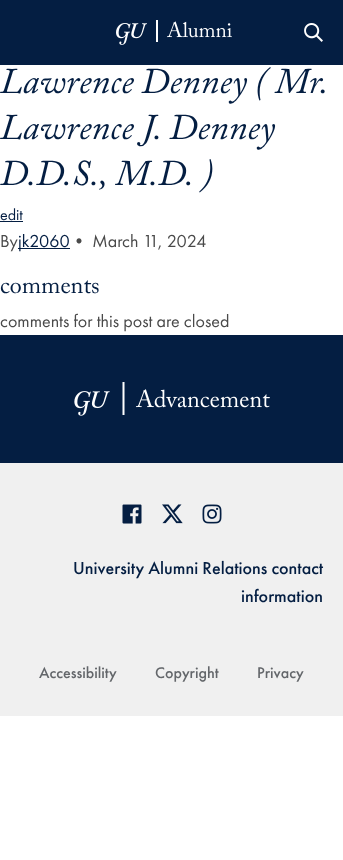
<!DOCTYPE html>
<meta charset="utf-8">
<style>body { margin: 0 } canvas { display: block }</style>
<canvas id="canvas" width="343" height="860"></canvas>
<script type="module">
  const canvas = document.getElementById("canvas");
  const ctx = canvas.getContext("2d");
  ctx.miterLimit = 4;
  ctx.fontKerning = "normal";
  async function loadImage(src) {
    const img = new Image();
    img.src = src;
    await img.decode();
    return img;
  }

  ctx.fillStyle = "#ffffff";
  ctx.fillRect(0, 0, 343, 860);
  ctx.fillStyle = "#041e42";
  ctx.fillRect(0, 0, 343, 65);
  ctx.drawImage(await loadImage("img1.png"), 116, 20, 116, 25);
  ctx.drawImage(await loadImage("img2.png"), 304, 23, 19, 19);
  ctx.wordSpacing = "-0.5px";
  ctx.font = "italic 36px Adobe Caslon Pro";
  ctx.fillText("Lawrence Denney ( Mr.", 0, 93);
  ctx.wordSpacing = "0px";
  ctx.fillText("Lawrence J. Denney", 0, 139);
  ctx.fillText("D.D.S., M.D. )", 0, 185);
  ctx.font = "16px Futura PT";
  ctx.fillText("edit", 0, 220);
  ctx.fillRect(0, 221, 23, 1);
  ctx.font = "18px Futura PT";
  ctx.fillStyle = "#4a4a4a";
  ctx.fillText("By", 0, 247);
  ctx.fillStyle = "#041e42";
  ctx.fillRect(18, 248, 52, 1);
  ctx.fillText("jk2060", 18, 247);
  ctx.fillStyle = "#4a4a4a";
  ctx.fillText("• March 11, 2024", 70, 247);
  ctx.font = "24px Adobe Caslon Pro";
  ctx.fillStyle = "#041e42";
  ctx.fillText("comments", 0, 293);
  ctx.font = "18px Futura PT";
  ctx.fillStyle = "#4a4a4a";
  ctx.fillText("comments for this post are closed", 0, 327);
  ctx.fillStyle = "#041e42";
  ctx.fillRect(0, 335, 343, 128);
  ctx.drawImage(await loadImage("img3.png"), 74, 382, 196, 34);
  ctx.fillStyle = "#f0f0f0";
  ctx.fillRect(0, 463, 343, 253);
  ctx.drawImage(await loadImage("img4.png"), 122, 504, 20, 20);
  ctx.drawImage(await loadImage("img5.png"), 162, 504, 21, 20);
  ctx.drawImage(await loadImage("img6.png"), 202, 504, 20, 20);
  ctx.font = "500 18px Futura PT";
  ctx.fillStyle = "#041e42";
  ctx.fillText("University Alumni Relations contact", 73, 574);
  ctx.fillText("information", 241, 602);
  ctx.font = "500 16px Futura PT";
  ctx.fillStyle = "#63666a";
  ctx.fillText("Accessibility", 39, 678);
  ctx.fillText("Copyright", 155, 678);
  ctx.fillText("Privacy", 257, 678);
</script>
